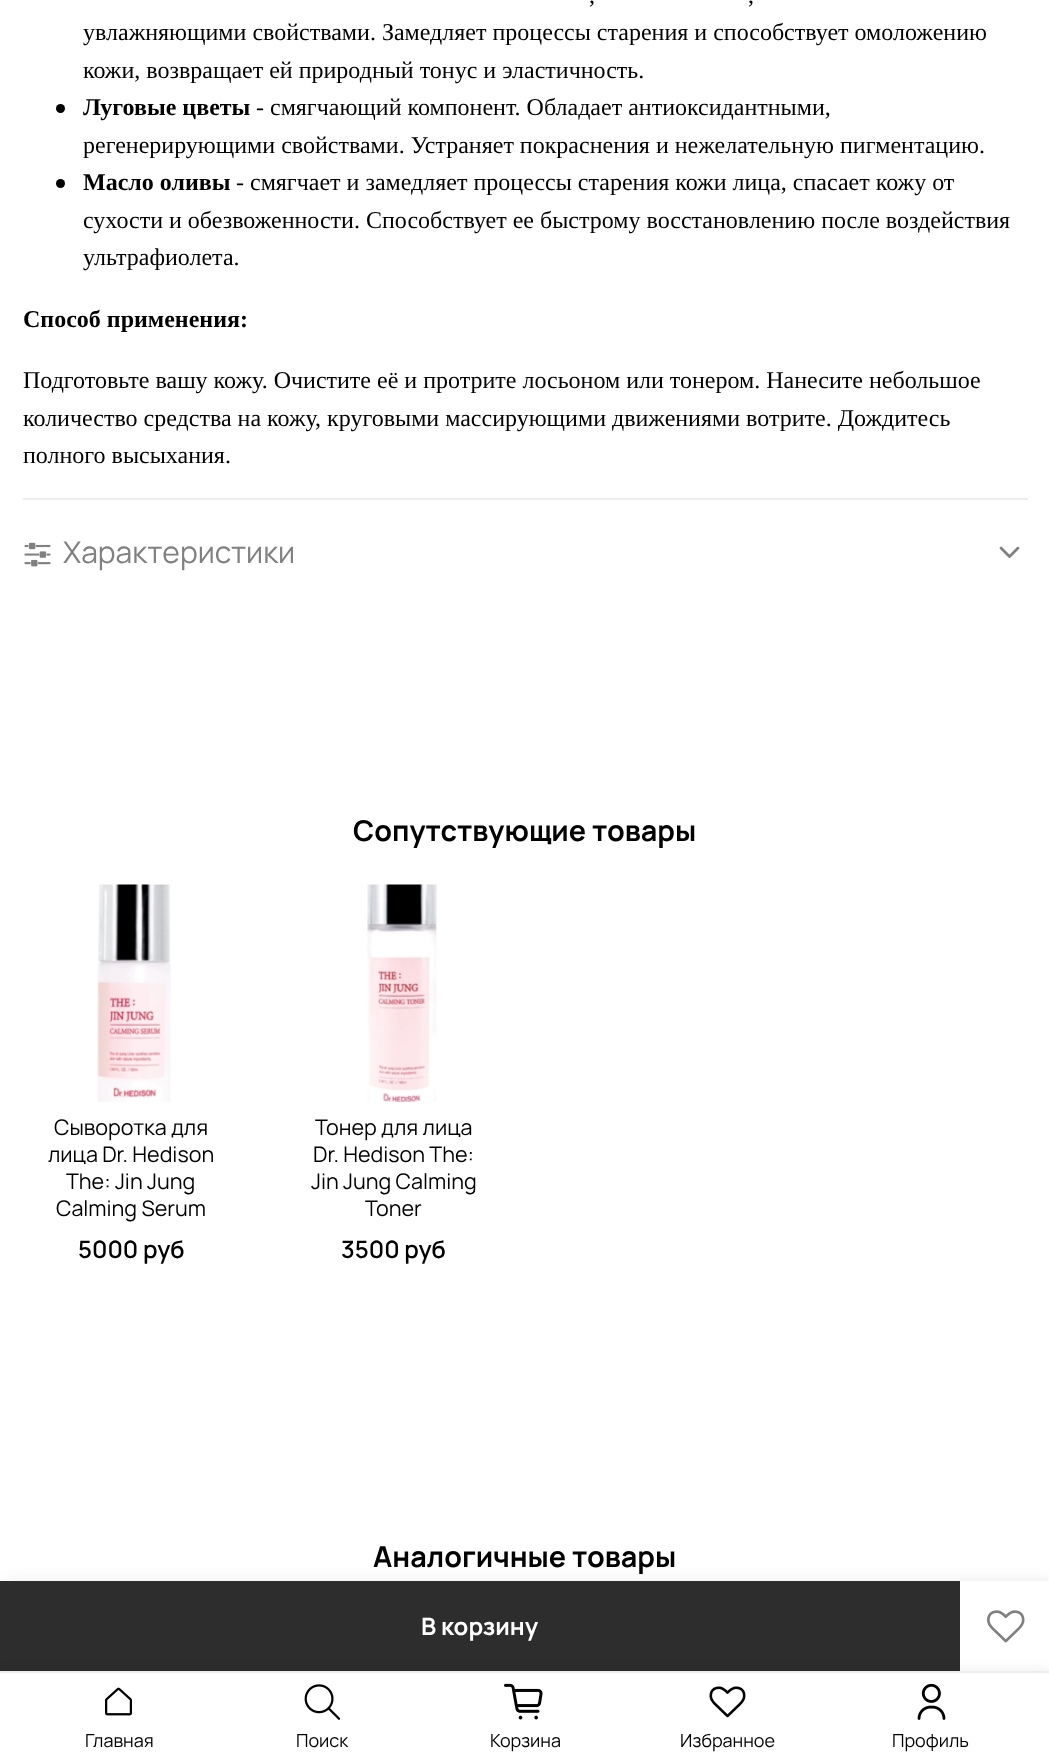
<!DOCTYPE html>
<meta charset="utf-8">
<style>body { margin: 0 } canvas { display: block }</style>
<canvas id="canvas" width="1049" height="1764"></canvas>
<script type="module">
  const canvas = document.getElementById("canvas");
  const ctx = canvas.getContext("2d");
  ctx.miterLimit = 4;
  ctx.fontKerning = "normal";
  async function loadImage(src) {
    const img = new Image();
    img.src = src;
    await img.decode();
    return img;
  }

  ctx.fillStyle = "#ffffff";
  ctx.fillRect(0, 0, 1049, 1764);
  ctx.font = "24px Liberation Serif";
  ctx.fillStyle = "#000000";
  ctx.fillText(",", 589, 3);
  ctx.fillText(",", 748, 3);
  ctx.fillText("увлажняющими свойствами. Замедляет процессы старения и способствует омоложению", 83, 40);
  ctx.fillText("кожи, возвращает ей природный тонус и эластичность.", 83, 78);
  ctx.beginPath();
  ctx.arc(60.5, 108.5, 4.5, 0, Math.PI * 2);
  ctx.fill();
  ctx.font = "bold 24px Liberation Serif";
  ctx.fillText("Луговые цветы", 83, 115);
  ctx.font = "24px Liberation Serif";
  ctx.fillText("- смягчающий компонент. Обладает антиоксидантными,", 256, 115);
  ctx.fillText("регенерирующими свойствами. Устраняет покраснения и нежелательную пигментацию.", 83, 153);
  ctx.beginPath();
  ctx.arc(60.5, 183.5, 4.5, 0, Math.PI * 2);
  ctx.fill();
  ctx.font = "bold 24px Liberation Serif";
  ctx.fillText("Масло оливы", 83, 190);
  ctx.font = "24px Liberation Serif";
  ctx.fillText("- смягчает и замедляет процессы старения кожи лица, спасает кожу от", 236, 190);
  ctx.fillText("сухости и обезвоженности. Способствует ее быстрому восстановлению после воздействия", 83, 228);
  ctx.fillText("ультрафиолета.", 83, 265);
  ctx.font = "bold 24px Liberation Serif";
  ctx.fillText("Способ применения:", 23, 327);
  ctx.font = "24px Liberation Serif";
  ctx.fillText("Подготовьте вашу кожу. Очистите её и протрите лосьоном или тонером. Нанесите небольшое", 23, 388);
  ctx.fillText("количество средства на кожу, круговыми массирующими движениями вотрите. Дождитесь", 23, 426);
  ctx.fillText("полного высыхания.", 23, 463);
  ctx.fillStyle = "#ededed";
  ctx.fillRect(23, 498, 1005, 2);
  ctx.drawImage(await loadImage("img1.png"), 24, 542, 27, 25);
  ctx.font = "30px Manrope";
  ctx.fillStyle = "#808080";
  ctx.fillText("Характеристики", 63, 563);
  ctx.drawImage(await loadImage("img2.png"), 999, 546, 21, 13);
  ctx.font = "bold 28.75px Manrope";
  ctx.fillStyle = "#000000";
  ctx.fillText("Сопутствующие товары", 353, 841);
  ctx.drawImage(await loadImage("img3.png"), 97, 884, 74, 218);
  ctx.font = "21.5px Manrope";
  ctx.fillText("Сыворотка для", 54, 1135);
  ctx.fillText("лица Dr. Hedison", 48, 1162);
  ctx.fillText("The: Jin Jung", 66, 1189);
  ctx.fillText("Calming Serum", 56, 1216);
  ctx.font = "600 24px Manrope";
  ctx.fillText("5000 руб", 78, 1258);
  ctx.drawImage(await loadImage("img4.png"), 367, 884, 70, 218);
  ctx.font = "21.5px Manrope";
  ctx.fillText("Тонер для лица", 315, 1135);
  ctx.fillText("Dr. Hedison The:", 313, 1162);
  ctx.fillText("Jin Jung Calming", 311, 1189);
  ctx.fillText("Toner", 365, 1216);
  ctx.font = "600 24px Manrope";
  ctx.fillText("3500 руб", 341, 1258);
  ctx.font = "bold 28.75px Manrope";
  ctx.fillText("Аналогичные товары", 373, 1567);
  ctx.fillStyle = "rgba(0, 0, 0, 0.08)";
  ctx.filter = "blur(7.5px)";
  ctx.beginPath();
  ctx.rect(6, 1581, 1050, 90);
  ctx.fill();
  ctx.filter = "none";
  ctx.fillStyle = "#ffffff";
  ctx.fillRect(960, 1581, 89, 90);
  ctx.fillStyle = "#2d2d2d";
  ctx.fillRect(0, 1581, 960, 90);
  ctx.font = "bold 24px Manrope";
  ctx.fillStyle = "#ffffff";
  ctx.fillText("В корзину", 421, 1635);
  ctx.drawImage(await loadImage("img5.png"), 987, 1610, 38, 33);
  ctx.fillStyle = "rgba(0, 0, 0, 0.12)";
  ctx.filter = "blur(7.5px)";
  ctx.beginPath();
  ctx.rect(0, 1674, 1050, 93);
  ctx.fill();
  ctx.filter = "none";
  ctx.fillStyle = "#ffffff";
  ctx.fillRect(0, 1673, 1049, 91);
  ctx.fillStyle = "#ededed";
  ctx.fillRect(0, 1671, 1049, 2);
  ctx.drawImage(await loadImage("img6.png"), 105, 1687, 27, 29);
  ctx.font = "18px Manrope";
  ctx.fillStyle = "#000000";
  ctx.fillText("Главная", 85, 1747);
  ctx.drawImage(await loadImage("img7.png"), 304, 1684, 37, 36);
  ctx.fillText("Поиск", 296, 1747);
  ctx.drawImage(await loadImage("img8.png"), 504, 1683, 39, 37);
  ctx.fillText("Корзина", 490, 1747);
  ctx.drawImage(await loadImage("img9.png"), 709, 1686, 37, 32);
  ctx.fillText("Избранное", 680, 1747);
  ctx.drawImage(await loadImage("img10.png"), 917, 1683, 29, 37);
  ctx.fillText("Профиль", 892, 1747);
</script>
